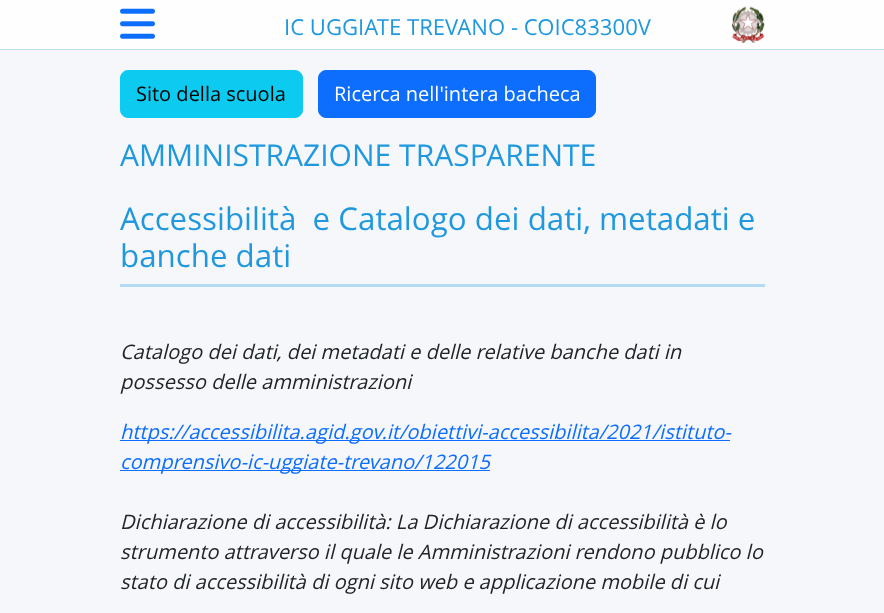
<!DOCTYPE html>
<meta charset="utf-8">
<style>body { margin: 0 } canvas { display: block }</style>
<canvas id="canvas" width="884" height="613"></canvas>
<script type="module">
  const canvas = document.getElementById("canvas");
  const ctx = canvas.getContext("2d");
  ctx.miterLimit = 4;
  ctx.fontKerning = "normal";
  async function loadImage(src) {
    const img = new Image();
    img.src = src;
    await img.decode();
    return img;
  }

  ctx.fillStyle = "#f5f7fa";
  ctx.fillRect(0, 0, 884, 613);
  ctx.fillStyle = "#fefefe";
  ctx.fillRect(0, 0, 884, 49);
  ctx.fillStyle = "#bbdff4";
  ctx.fillRect(0, 49, 884, 1);
  ctx.drawImage(await loadImage("img1.png"), 120, 8, 35, 31);
  ctx.font = "22.1px Open Sans";
  ctx.fillStyle = "#1f98de";
  ctx.fillText("IC UGGIATE TREVANO - COIC83300V", 284, 35);
  ctx.drawImage(await loadImage("img2.png"), 731, 6, 34, 38);
  ctx.fillStyle = "#0dcaf0";
  ctx.beginPath();
  ctx.roundRect(120.5, 70.5, 182, 47, 7.5);
  ctx.fill();
  ctx.strokeStyle = "#0dcaf0";
  ctx.stroke();
  ctx.font = "20px Open Sans";
  ctx.fillStyle = "#000000";
  ctx.fillText("Sito della scuola", 136, 101);
  ctx.fillStyle = "#0d6efd";
  ctx.beginPath();
  ctx.roundRect(318.5, 70.5, 277, 47, 7.5);
  ctx.fill();
  ctx.strokeStyle = "#0d6efd";
  ctx.stroke();
  ctx.fillStyle = "#ffffff";
  ctx.fillText("Ricerca nell'intera bacheca", 334, 101);
  ctx.font = "30px Open Sans";
  ctx.fillStyle = "#1f98de";
  ctx.fillText("AMMINISTRAZIONE TRASPARENTE", 120, 166);
  ctx.fillStyle = "#b5dbf2";
  ctx.fillRect(120, 284, 645, 3);
  ctx.font = "31.3px Open Sans";
  ctx.fillStyle = "#1f98de";
  ctx.fillText("Accessibilità  e Catalogo dei dati, metadati e", 120, 230);
  ctx.fillText("banche dati", 120, 267);
  ctx.font = "italic 20px Open Sans";
  ctx.fillStyle = "#212529";
  ctx.fillText("Catalogo dei dati, dei metadati e delle relative banche dati in", 120, 359);
  ctx.fillText("possesso delle amministrazioni", 120, 389);
  ctx.fillStyle = "#0d6efd";
  ctx.fillRect(120, 440, 196, 1);
  ctx.fillText("https://accessibilita.a", 120, 439);
  ctx.fillRect(316, 440, 414, 1);
  ctx.fillText("gid.gov.it/obiettivi-accessibilita/2021/istituto-", 316, 439);
  ctx.fillRect(120, 470, 370, 1);
  ctx.fillText("comprensivo-ic-uggiate-trevano/122015", 120, 469);
  ctx.fillStyle = "#212529";
  ctx.fillText("Dichiarazione di accessibilità: La Dichiarazione di accessibilità è lo", 120, 529);
  ctx.fillText("strumento attraverso il quale le Amministrazioni rendono pubblico lo", 120, 559);
  ctx.fillText("stato di accessibilità di ogni sito web e applicazione mobile di cui", 120, 589);
</script>
